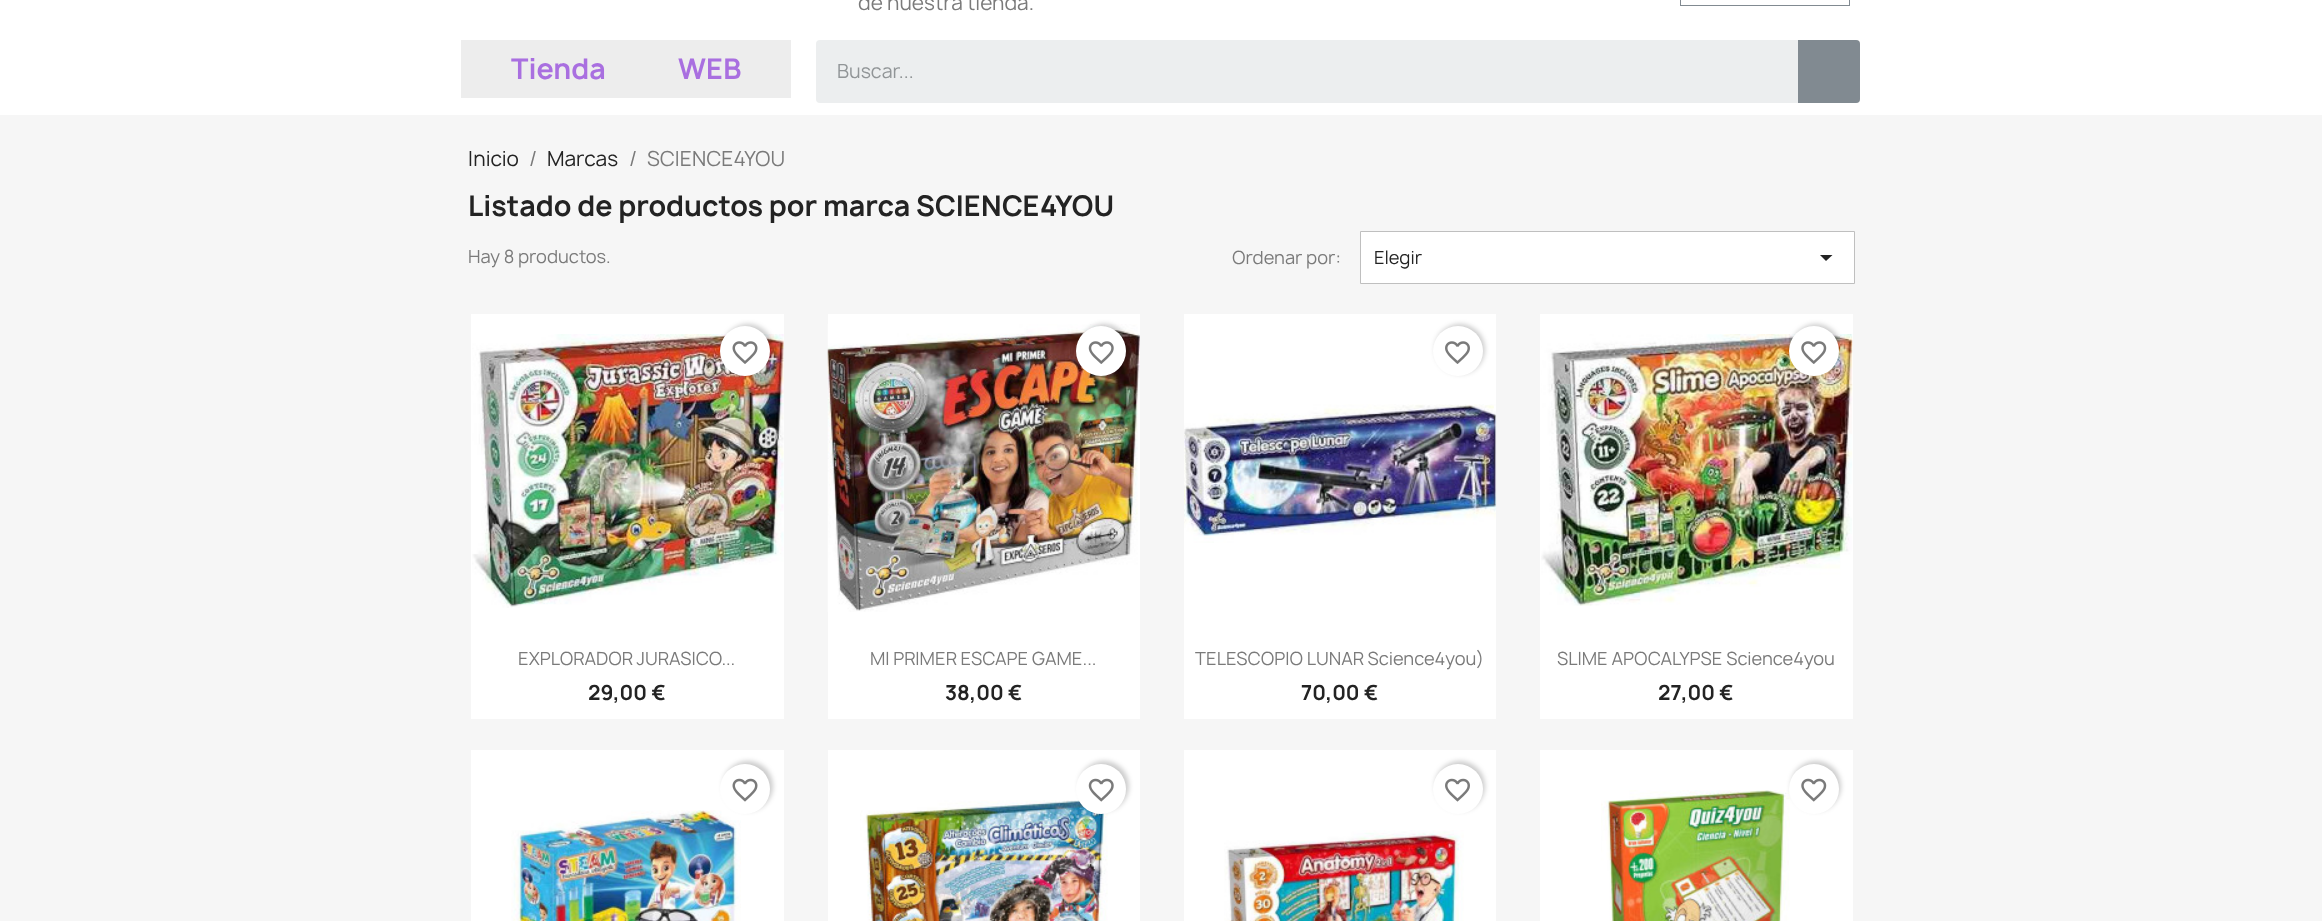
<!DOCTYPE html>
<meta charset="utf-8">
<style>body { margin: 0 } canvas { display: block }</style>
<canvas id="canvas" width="2322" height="921"></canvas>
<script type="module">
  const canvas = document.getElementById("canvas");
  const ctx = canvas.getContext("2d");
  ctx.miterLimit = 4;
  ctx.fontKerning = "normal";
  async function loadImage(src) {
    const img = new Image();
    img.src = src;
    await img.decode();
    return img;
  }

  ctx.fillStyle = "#ffffff";
  ctx.fillRect(0, 0, 2322, 921);
  ctx.font = "20px Manrope";
  ctx.fillStyle = "#7a7a7a";
  ctx.fillText("de nuestra tienda.", 858, 10);
  ctx.strokeStyle = "#818a91";
  ctx.strokeRect(1680.5, -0.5, 169, 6);
  ctx.fillStyle = "#ededed";
  ctx.fillRect(461, 40, 330, 58);
  ctx.font = "bold 27.5px Manrope";
  ctx.fillStyle = "#a96fe0";
  ctx.fillText("Tienda", 511, 79);
  ctx.fillText("WEB", 678, 79);
  ctx.fillStyle = "#eceeef";
  ctx.beginPath();
  ctx.roundRect(816, 40, 1044, 63, 4);
  ctx.fill();
  ctx.font = "18.75px Manrope";
  ctx.fillStyle = "#919597";
  ctx.fillText("Buscar...", 837, 78);
  ctx.fillStyle = "#818a91";
  ctx.beginPath();
  ctx.roundRect(1798, 40, 62, 63, [0, 4, 4, 0]);
  ctx.fill();
  ctx.fillStyle = "#f6f6f6";
  ctx.fillRect(0, 115, 2322, 806);
  ctx.font = "20px Manrope";
  ctx.fillStyle = "#232323";
  ctx.fillText("Inicio", 468, 166);
  ctx.fillStyle = "#7a7a7a";
  ctx.fillText("/", 529, 166);
  ctx.fillStyle = "#232323";
  ctx.fillText("Marcas", 547, 166);
  ctx.fillStyle = "#7a7a7a";
  ctx.fillText("/", 629, 166);
  ctx.fillText("SCIENCE4YOU", 647, 166);
  ctx.font = "bold 27.5px Manrope";
  ctx.fillStyle = "#232323";
  ctx.fillText("Listado de productos por marca SCIENCE4YOU", 468, 216);
  ctx.font = "17.5px Manrope";
  ctx.fillStyle = "#7a7a7a";
  ctx.fillText("Hay 8 productos.", 468, 263);
  ctx.fillText("Ordenar por:", 1232, 264);
  ctx.fillStyle = "#ffffff";
  ctx.beginPath();
  ctx.rect(1360.5, 231.5, 494, 52);
  ctx.fill();
  ctx.strokeStyle = "#bfbfbf";
  ctx.stroke();
  ctx.fillStyle = "#232323";
  ctx.fillText("Elegir", 1374, 264);
  ctx.beginPath();
  ctx.moveTo(1820, 255);
  ctx.lineTo(1832.5, 255);
  ctx.lineTo(1826, 261);
  ctx.closePath();
  ctx.fill();
  ctx.fillStyle = "#ffffff";
  ctx.fillRect(471, 314, 313, 405);
  ctx.drawImage(await loadImage("img2.png"), 472, 334, 312, 274);
  ctx.fillStyle = "rgba(0, 0, 0, 0.2)";
  ctx.filter = "blur(2.5px)";
  ctx.beginPath();
  ctx.roundRect(723, 324, 50, 50, 25);
  ctx.fill();
  ctx.filter = "none";
  ctx.fillStyle = "#ffffff";
  ctx.beginPath();
  ctx.arc(745, 351, 25, 0, Math.PI * 2);
  ctx.fill();
  ctx.drawImage(await loadImage("img1.png"), 732, 341, 26, 23);
  ctx.fillStyle = "#7a7a7a";
  ctx.fillText("EXPLORADOR JURASICO...", 518, 665);
  ctx.font = "bold 20px Manrope";
  ctx.fillStyle = "#232323";
  ctx.fillText("29,00 €", 588, 700);
  ctx.fillStyle = "#ffffff";
  ctx.fillRect(828, 314, 312, 405);
  ctx.drawImage(await loadImage("img4.png"), 827, 324, 313, 288);
  ctx.fillStyle = "rgba(0, 0, 0, 0.2)";
  ctx.filter = "blur(2.5px)";
  ctx.beginPath();
  ctx.roundRect(1079, 324, 50, 50, 25);
  ctx.fill();
  ctx.filter = "none";
  ctx.fillStyle = "#ffffff";
  ctx.beginPath();
  ctx.arc(1101, 351, 25, 0, Math.PI * 2);
  ctx.fill();
  ctx.drawImage(await loadImage("img3.png"), 1088, 341, 26, 23);
  ctx.font = "17.5px Manrope";
  ctx.fillStyle = "#7a7a7a";
  ctx.fillText("MI PRIMER ESCAPE GAME...", 870, 665);
  ctx.font = "bold 20px Manrope";
  ctx.fillStyle = "#232323";
  ctx.fillText("38,00 €", 945, 700);
  ctx.fillStyle = "#ffffff";
  ctx.fillRect(1184, 314, 312, 405);
  ctx.fillStyle = "rgba(0, 0, 0, 0.2)";
  ctx.filter = "blur(2.5px)";
  ctx.beginPath();
  ctx.roundRect(1435, 324, 50, 50, 25);
  ctx.fill();
  ctx.filter = "none";
  ctx.fillStyle = "#ffffff";
  ctx.beginPath();
  ctx.arc(1458, 351, 25, 0, Math.PI * 2);
  ctx.fill();
  ctx.drawImage(await loadImage("img5.png"), 1445, 341, 25, 23);
  ctx.drawImage(await loadImage("img6.png"), 1184, 404, 313, 139);
  ctx.font = "17.5px Manrope";
  ctx.fillStyle = "#7a7a7a";
  ctx.fillText("TELESCOPIO LUNAR Science4you)", 1195, 665);
  ctx.font = "bold 20px Manrope";
  ctx.fillStyle = "#232323";
  ctx.fillText("70,00 €", 1301, 700);
  ctx.fillStyle = "#ffffff";
  ctx.fillRect(1540, 314, 313, 405);
  ctx.drawImage(await loadImage("img8.png"), 1541, 334, 312, 272);
  ctx.fillStyle = "rgba(0, 0, 0, 0.2)";
  ctx.filter = "blur(2.5px)";
  ctx.beginPath();
  ctx.roundRect(1791, 324, 50, 50, 25);
  ctx.fill();
  ctx.filter = "none";
  ctx.fillStyle = "#ffffff";
  ctx.beginPath();
  ctx.arc(1814, 351, 25, 0, Math.PI * 2);
  ctx.fill();
  ctx.drawImage(await loadImage("img7.png"), 1801, 341, 26, 23);
  ctx.font = "17.5px Manrope";
  ctx.fillStyle = "#7a7a7a";
  ctx.fillText("SLIME APOCALYPSE Science4you", 1557, 665);
  ctx.font = "bold 20px Manrope";
  ctx.fillStyle = "#232323";
  ctx.fillText("27,00 €", 1658, 700);
  ctx.fillStyle = "#ffffff";
  ctx.fillRect(471, 750, 313, 171);
  ctx.drawImage(await loadImage("img10.png"), 511, 810, 230, 111);
  ctx.fillStyle = "rgba(0, 0, 0, 0.2)";
  ctx.filter = "blur(2.5px)";
  ctx.beginPath();
  ctx.roundRect(723, 761, 50, 50, 25);
  ctx.fill();
  ctx.filter = "none";
  ctx.fillStyle = "#ffffff";
  ctx.beginPath();
  ctx.arc(745, 789, 25, 0, Math.PI * 2);
  ctx.fill();
  ctx.drawImage(await loadImage("img9.png"), 732, 778, 26, 24);
  ctx.fillRect(828, 750, 312, 171);
  ctx.drawImage(await loadImage("img12.png"), 860, 800, 248, 121);
  ctx.fillStyle = "rgba(0, 0, 0, 0.2)";
  ctx.filter = "blur(2.5px)";
  ctx.beginPath();
  ctx.roundRect(1079, 761, 50, 50, 25);
  ctx.fill();
  ctx.filter = "none";
  ctx.fillStyle = "#ffffff";
  ctx.beginPath();
  ctx.arc(1101, 789, 25, 0, Math.PI * 2);
  ctx.fill();
  ctx.drawImage(await loadImage("img11.png"), 1088, 778, 26, 24);
  ctx.fillRect(1184, 750, 312, 171);
  ctx.fillStyle = "rgba(0, 0, 0, 0.2)";
  ctx.filter = "blur(2.5px)";
  ctx.beginPath();
  ctx.roundRect(1435, 761, 50, 50, 25);
  ctx.fill();
  ctx.filter = "none";
  ctx.fillStyle = "#ffffff";
  ctx.beginPath();
  ctx.arc(1458, 789, 25, 0, Math.PI * 2);
  ctx.fill();
  ctx.drawImage(await loadImage("img13.png"), 1445, 778, 25, 24);
  ctx.drawImage(await loadImage("img14.png"), 1224, 830, 240, 91);
  ctx.fillRect(1540, 750, 313, 171);
  ctx.drawImage(await loadImage("img15.png"), 1601, 790, 189, 131);
  ctx.fillStyle = "rgba(0, 0, 0, 0.2)";
  ctx.filter = "blur(2.5px)";
  ctx.beginPath();
  ctx.roundRect(1791, 761, 50, 50, 25);
  ctx.fill();
  ctx.filter = "none";
  ctx.fillStyle = "#ffffff";
  ctx.beginPath();
  ctx.arc(1814, 789, 25, 0, Math.PI * 2);
  ctx.fill();
  ctx.drawImage(await loadImage("img16.png"), 1801, 778, 26, 24);
</script>
